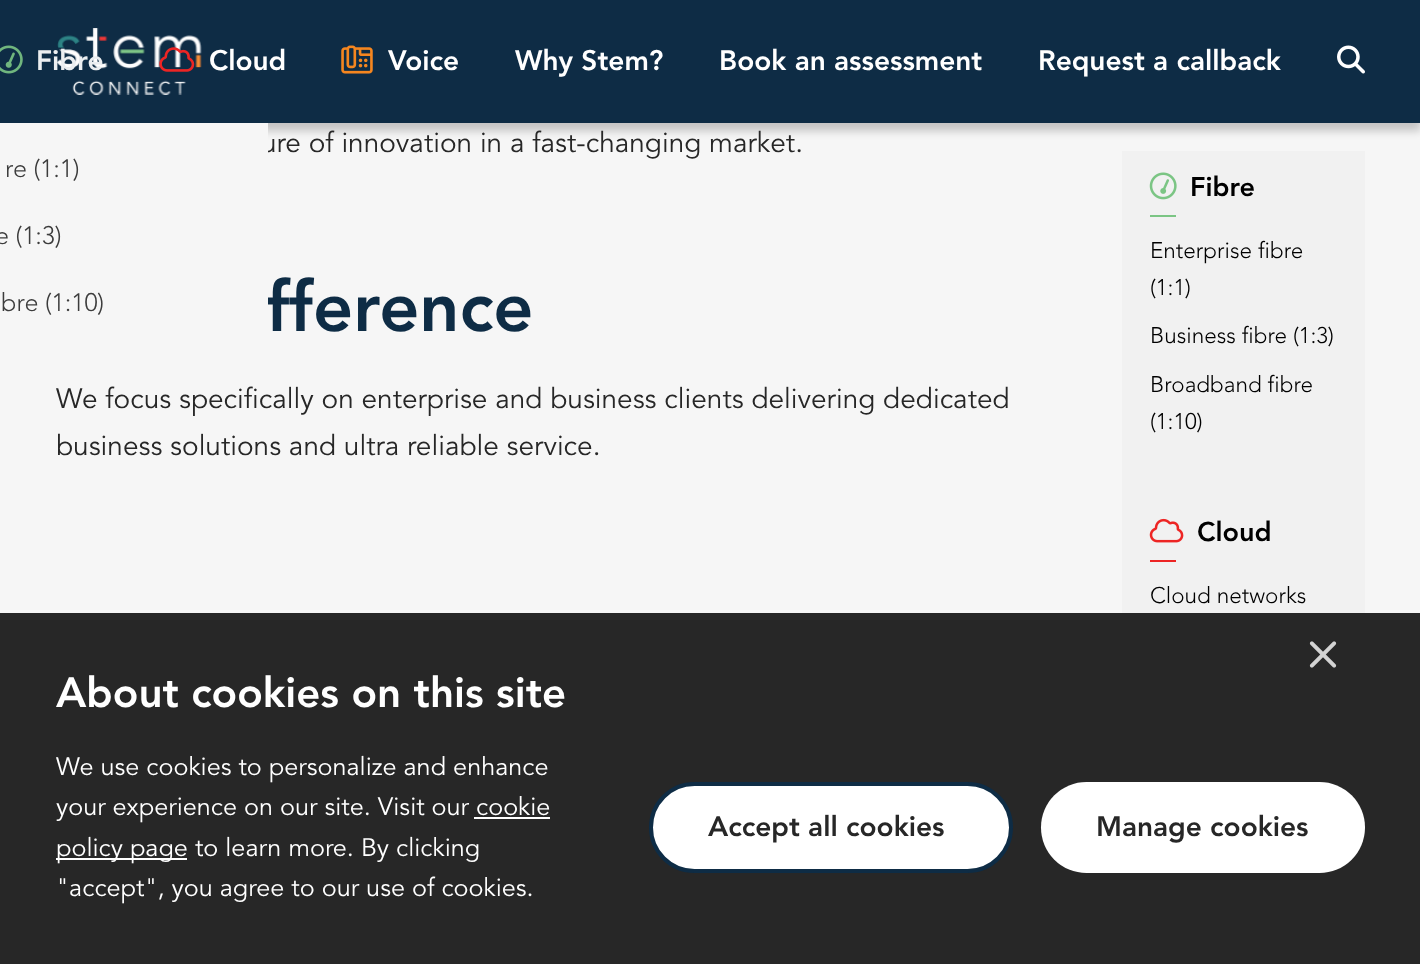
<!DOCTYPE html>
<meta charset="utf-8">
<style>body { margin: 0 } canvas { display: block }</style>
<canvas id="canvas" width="1420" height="964"></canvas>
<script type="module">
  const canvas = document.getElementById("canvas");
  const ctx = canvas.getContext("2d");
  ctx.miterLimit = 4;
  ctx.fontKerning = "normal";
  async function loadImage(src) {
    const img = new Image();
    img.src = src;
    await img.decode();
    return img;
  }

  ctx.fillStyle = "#f6f6f6";
  ctx.fillRect(0, 0, 1420, 964);
  ctx.fillStyle = "rgba(0, 0, 0, 0.2)";
  ctx.filter = "blur(4.5px)";
  ctx.beginPath();
  ctx.rect(0, 9, 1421, 122);
  ctx.fill();
  ctx.filter = "none";
  ctx.fillStyle = "#0e2c45";
  ctx.fillRect(0, 0, 1420, 123);
  ctx.drawImage(await loadImage("img1.png"), 56, 28, 146, 67);
  ctx.drawImage(await loadImage("img2.png"), 1337, 45, 28, 29);
  ctx.drawImage(await loadImage("img3.png"), 0, 45, 23, 29);
  ctx.font = "900 28px 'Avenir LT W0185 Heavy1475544'";
  ctx.fillStyle = "#ebeef0";
  ctx.fillText("Fibre", 36, 70);
  ctx.font = "28px 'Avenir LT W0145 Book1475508'";
  ctx.fillStyle = "#272727";
  ctx.fillText("ure of innovation in a fast-changing market.", 261, 152);
  ctx.font = "900 70px 'Avenir LT W0185 Heavy1475544'";
  ctx.fillStyle = "#0e2c45";
  ctx.fillText("fference", 265, 331);
  ctx.fillStyle = "#f6f6f6";
  ctx.fillRect(0, 123, 268, 182);
  ctx.font = "300 25.25px 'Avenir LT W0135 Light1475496'";
  ctx.fillStyle = "#3c3c3c";
  ctx.fillText("re (1:1)", 5, 177);
  ctx.fillText("e (1:3)", -5, 244);
  ctx.fillText("bre (1:10)", 1, 311);
  ctx.drawImage(await loadImage("img4.png"), 159, 47, 36, 25);
  ctx.font = "900 28px 'Avenir LT W0185 Heavy1475544'";
  ctx.fillStyle = "#ffffff";
  ctx.fillText("Cloud", 209, 70);
  ctx.drawImage(await loadImage("img5.png"), 341, 45, 32, 29);
  ctx.fillText("Voice", 388, 70);
  ctx.fillText("Why Stem?", 515, 70);
  ctx.fillText("Book an assessment", 719, 70);
  ctx.fillText("Request a callback", 1038, 70);
  ctx.font = "28px 'Avenir LT W0145 Book1475508'";
  ctx.fillStyle = "#272727";
  ctx.fillText("We focus specifically on enterprise and business clients delivering dedicated", 56, 408);
  ctx.fillText("business solutions and ultra reliable service.", 56, 455);
  ctx.fillStyle = "#f1f1f1";
  ctx.fillRect(1122, 151, 243, 462);
  ctx.drawImage(await loadImage("img6.png"), 1149, 172, 28, 28);
  ctx.font = "900 27px 'Avenir LT W0185 Heavy1475544'";
  ctx.fillStyle = "#000000";
  ctx.fillText("Fibre", 1190, 196);
  ctx.fillStyle = "#7bc584";
  ctx.fillRect(1150, 215, 26, 2);
  ctx.font = "300 22.5px 'Avenir LT W0135 Light1475496'";
  ctx.fillStyle = "#000000";
  ctx.fillText("Enterprise fibre", 1150, 258);
  ctx.fillText("(1:1)", 1150, 295);
  ctx.fillText("Business fibre (1:3)", 1150, 343);
  ctx.fillText("Broadband fibre", 1150, 392);
  ctx.fillText("(1:10)", 1150, 429);
  ctx.drawImage(await loadImage("img7.png"), 1149, 518, 35, 25);
  ctx.font = "900 27px 'Avenir LT W0185 Heavy1475544'";
  ctx.fillText("Cloud", 1197, 541);
  ctx.fillStyle = "#ed2524";
  ctx.fillRect(1150, 560, 26, 2);
  ctx.font = "300 22.5px 'Avenir LT W0135 Light1475496'";
  ctx.fillStyle = "#000000";
  ctx.fillText("Cloud networks", 1150, 603);
  ctx.fillStyle = "#272727";
  ctx.fillRect(0, 613, 1420, 351);
  ctx.drawImage(await loadImage("img8.png"), 1309, 641, 28, 27);
  ctx.font = "900 42px 'Avenir LT W0185 Heavy1475544'";
  ctx.fillStyle = "#ffffff";
  ctx.fillText("About cookies on this site", 56, 707);
  ctx.font = "25.25px 'Avenir LT W0145 Book1475508'";
  ctx.fillText("We use cookies to personalize and enhance", 56, 775);
  ctx.fillText("your experience on our site. Visit our cookie", 56, 815);
  ctx.fillRect(56, 858, 131, 2);
  ctx.fillText("policy page to learn more. By clicking", 56, 856);
  ctx.fillRect(474, 817, 76, 2);
  ctx.fillText("\"accept\", you agree to our use of cookies.", 56, 896);
  ctx.beginPath();
  ctx.roundRect(651, 784, 360, 87, 43.5);
  ctx.fill();
  ctx.strokeStyle = "#0e2c45";
  ctx.lineWidth = 4;
  ctx.stroke();
  ctx.font = "900 28px 'Avenir LT W0185 Heavy1475544'";
  ctx.fillStyle = "#272727";
  ctx.fillText("Accept all cookies", 708, 836);
  ctx.fillStyle = "#ffffff";
  ctx.beginPath();
  ctx.roundRect(1041, 782, 324, 91, 45.5);
  ctx.fill();
  ctx.fillStyle = "#272727";
  ctx.fillText("Manage cookies", 1096, 836);
</script>
